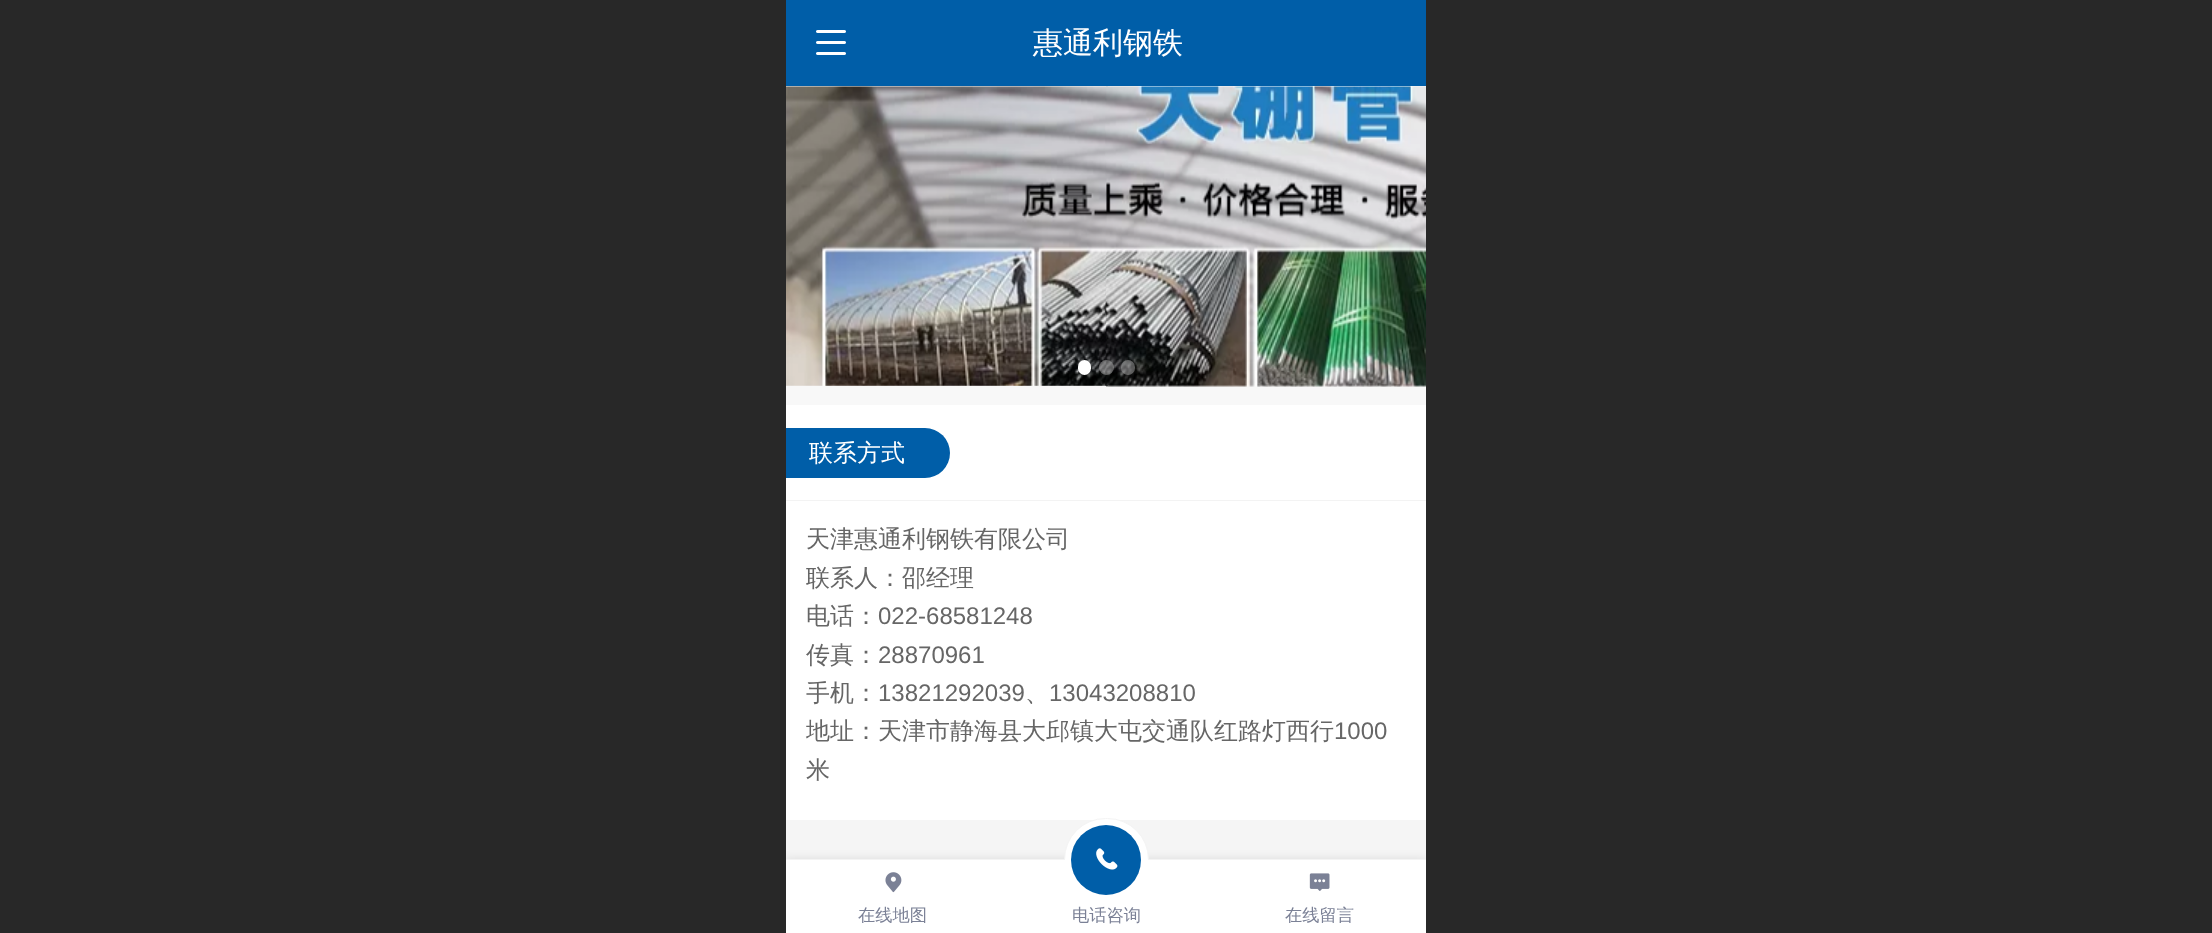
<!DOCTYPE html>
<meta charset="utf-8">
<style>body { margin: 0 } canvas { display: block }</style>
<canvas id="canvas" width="2212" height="933"></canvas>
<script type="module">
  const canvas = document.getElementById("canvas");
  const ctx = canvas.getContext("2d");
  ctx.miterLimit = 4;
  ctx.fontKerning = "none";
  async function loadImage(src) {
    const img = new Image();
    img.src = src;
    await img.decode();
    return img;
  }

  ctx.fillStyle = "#f8f8f8";
  ctx.fillRect(0, 0, 2212, 933);
  ctx.fillStyle = "#f5f5f5";
  ctx.fillRect(786, 820, 640, 39);
  ctx.fillStyle = "rgba(0, 0, 0, 0.1)";
  ctx.filter = "blur(5px)";
  ctx.beginPath();
  ctx.rect(786, 859, 640, 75);
  ctx.fill();
  ctx.filter = "none";
  ctx.fillStyle = "#282828";
  ctx.fillRect(0, 0, 786, 933);
  ctx.fillStyle = "#005ea8";
  ctx.fillRect(786, 0, 640, 86);
  ctx.font = "30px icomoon";
  ctx.fillStyle = "#ffffff";
  ctx.fillText("򰌲", 816, 55);
  ctx.font = "500 30px WenQuanYi Zen Hei";
  ctx.fillText("惠通利钢铁", 1033, 53);
  ctx.drawImage(await loadImage("img1.png"), 786, 86, 322, 300);
  ctx.drawImage(await loadImage("img2.png"), 1106, 86, 320, 301);
  ctx.beginPath();
  ctx.roundRect(1078, 360, 13, 15, 6.5);
  ctx.fill();
  ctx.fillStyle = "rgba(171, 171, 171, 0.5)";
  ctx.beginPath();
  ctx.arc(1106.5, 367.5, 7.5, 0, Math.PI * 2);
  ctx.fill();
  ctx.beginPath();
  ctx.roundRect(1121, 360, 14, 15, 7);
  ctx.fill();
  ctx.fillStyle = "#ffffff";
  ctx.fillRect(786, 405, 640, 95);
  ctx.fillStyle = "#f3f3f3";
  ctx.fillRect(786, 500, 640, 1);
  ctx.fillStyle = "#005ea8";
  ctx.beginPath();
  ctx.roundRect(786, 428, 164, 50, [0, 25, 25, 0]);
  ctx.fill();
  ctx.font = "500 24px WenQuanYi Zen Hei";
  ctx.fillStyle = "#ffffff";
  ctx.fillText("联系方式", 809, 461);
  ctx.fillRect(786, 501, 640, 319);
  ctx.fillStyle = "#666666";
  ctx.fillText("天津惠通利钢铁有限公司", 806, 547);
  ctx.fillText("联系人：邵经理", 806, 586);
  ctx.fillText("电话：", 806, 624);
  ctx.font = "24px Liberation Sans";
  ctx.fillText("022-68581248", 878, 624);
  ctx.font = "500 24px WenQuanYi Zen Hei";
  ctx.fillText("传真：", 806, 663);
  ctx.font = "24px Liberation Sans";
  ctx.fillText("28870961", 878, 663);
  ctx.font = "500 24px WenQuanYi Zen Hei";
  ctx.fillText("手机：", 806, 701);
  ctx.font = "24px Liberation Sans";
  ctx.fillText("13821292039", 878, 701);
  ctx.font = "500 24px WenQuanYi Zen Hei";
  ctx.fillText("、", 1025, 701);
  ctx.font = "24px Liberation Sans";
  ctx.fillText("13043208810", 1049, 701);
  ctx.font = "500 24px WenQuanYi Zen Hei";
  ctx.fillText("地址：天津市静海县大邱镇大屯交通队红路灯西行", 806, 739);
  ctx.font = "24px Liberation Sans";
  ctx.fillText("1000", 1334, 739);
  ctx.font = "500 24px WenQuanYi Zen Hei";
  ctx.fillText("米", 806, 778);
  ctx.fillStyle = "#ffffff";
  ctx.fillRect(786, 860, 640, 73);
  ctx.fillStyle = "#f4f4f4";
  ctx.fillRect(786, 859, 640, 1);
  ctx.drawImage(await loadImage("img3.png"), 885, 872, 17, 21);
  ctx.font = "500 17.25px WenQuanYi Zen Hei";
  ctx.fillStyle = "#7b8196";
  ctx.fillText("在线地图", 858, 921);
  ctx.fillStyle = "#ffffff";
  ctx.beginPath();
  ctx.roundRect(1064.5, 818.5, 84, 82, 41);
  ctx.fill();
  ctx.strokeStyle = "#f4f4f4";
  ctx.stroke();
  ctx.fillRect(1064, 860, 85, 41);
  ctx.fillStyle = "#005ea8";
  ctx.beginPath();
  ctx.arc(1106, 860, 35, 0, Math.PI * 2);
  ctx.fill();
  ctx.drawImage(await loadImage("img4.png"), 1096, 848, 22, 22);
  ctx.fillStyle = "#7b8196";
  ctx.fillText("电话咨询", 1072, 921);
  ctx.drawImage(await loadImage("img5.png"), 1309, 873, 21, 18);
  ctx.fillText("在线留言", 1285, 921);
  ctx.fillStyle = "#282828";
  ctx.fillRect(1426, 0, 786, 933);
</script>
